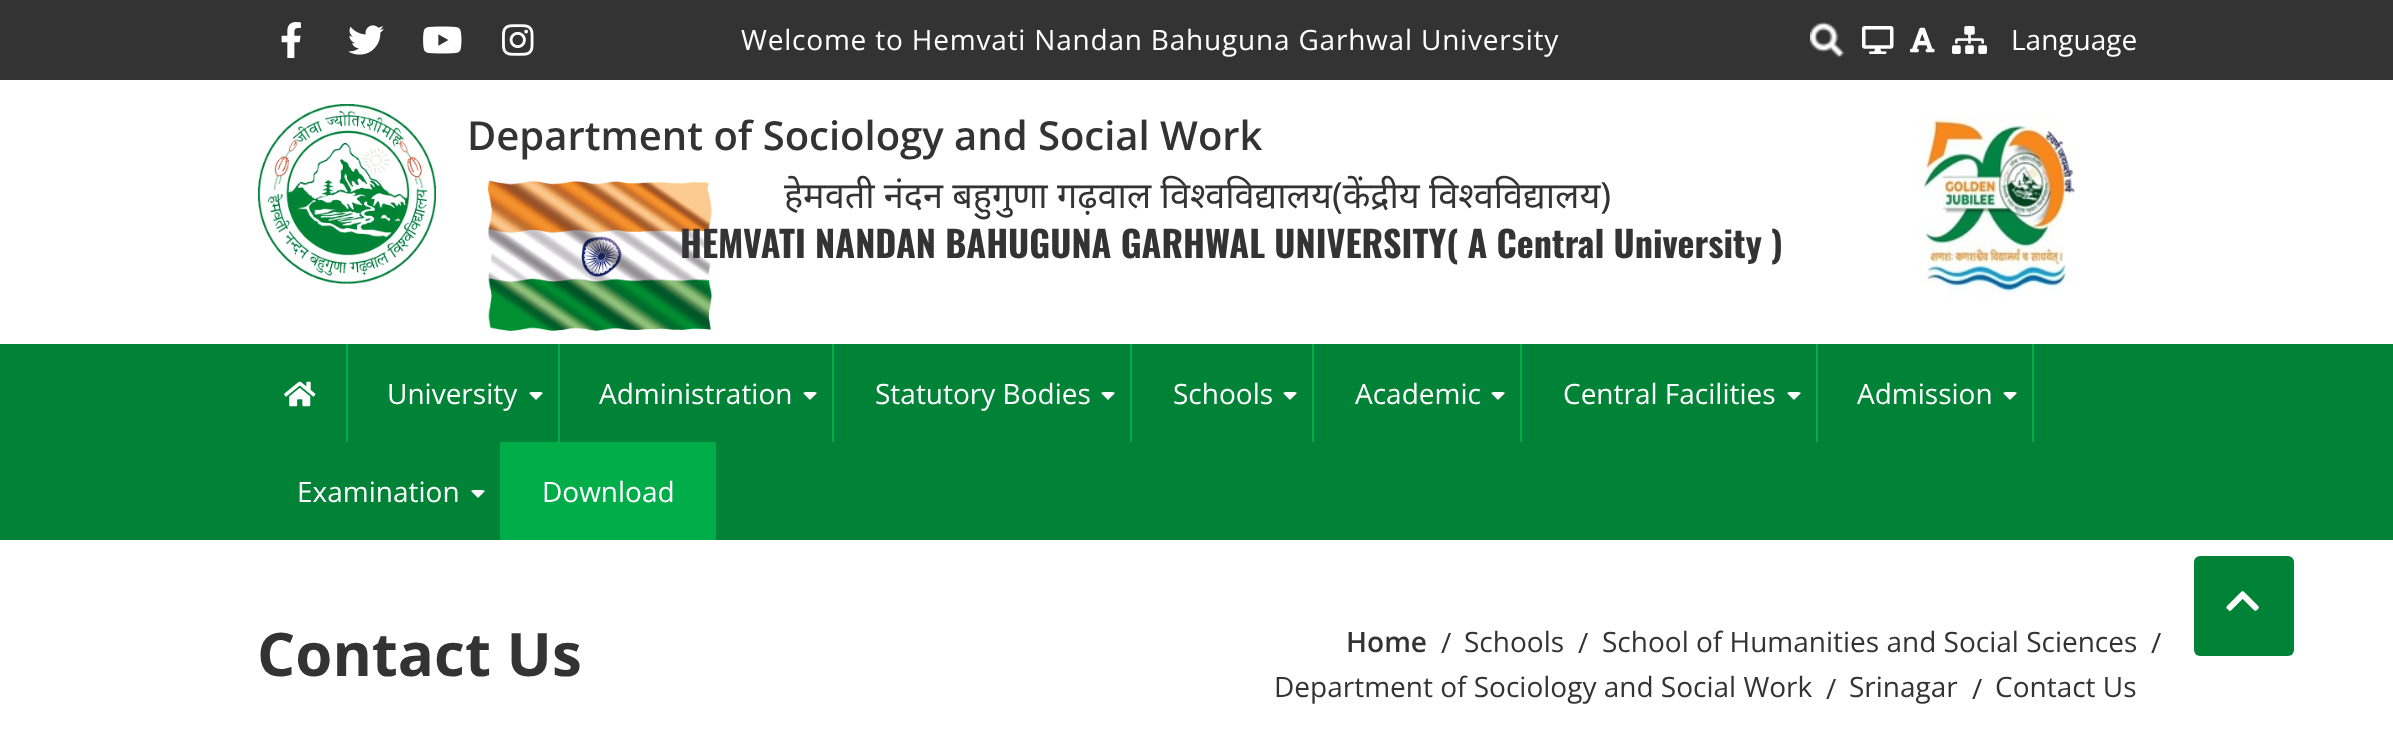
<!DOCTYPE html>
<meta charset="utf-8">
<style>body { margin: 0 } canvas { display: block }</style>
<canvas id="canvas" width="2393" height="746"></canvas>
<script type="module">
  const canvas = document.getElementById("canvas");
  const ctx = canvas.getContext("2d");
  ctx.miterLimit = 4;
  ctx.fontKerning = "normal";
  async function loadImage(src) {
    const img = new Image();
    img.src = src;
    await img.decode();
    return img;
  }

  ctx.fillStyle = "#ffffff";
  ctx.fillRect(0, 0, 2393, 746);
  ctx.fillStyle = "#333333";
  ctx.fillRect(0, 0, 2393, 80);
  ctx.drawImage(await loadImage("img1.png"), 281, 22, 20, 36);
  ctx.drawImage(await loadImage("img2.png"), 348, 25, 36, 30);
  ctx.drawImage(await loadImage("img3.png"), 423, 26, 39, 28);
  ctx.drawImage(await loadImage("img4.png"), 502, 24, 32, 32);
  ctx.letterSpacing = "0.8px";
  ctx.font = "28px Open Sans";
  ctx.fillStyle = "#ffffff";
  ctx.fillText("Welcome to Hemvati Nandan Bahuguna Garhwal University", 741, 50);
  ctx.drawImage(await loadImage("img5.png"), 1810, 22, 34, 36);
  ctx.drawImage(await loadImage("img6.png"), 1862, 26, 32, 28);
  ctx.drawImage(await loadImage("img7.png"), 1910, 27, 25, 26);
  ctx.drawImage(await loadImage("img8.png"), 1952, 26, 35, 28);
  ctx.letterSpacing = "0px";
  ctx.fillText("Language", 2011, 50);
  ctx.drawImage(await loadImage("img9.png"), 258, 104, 178, 180);
  ctx.font = "600 40px Open Sans";
  ctx.fillStyle = "#333333";
  ctx.fillText("Department of Sociology and Social Work", 467, 150);
  ctx.drawImage(await loadImage("img10.png"), 487, 180, 226, 152);
  ctx.font = "36px Noto Sans";
  ctx.fillText("हेमवती नंदन बहुगुणा गढ़वाल विश्वविद्यालय(केंद्रीय विश्वविद्यालय)", 784, 208);
  ctx.font = "bold 36px Oswald";
  ctx.fillText("HEMVATI NANDAN BAHUGUNA GARHWAL UNIVERSITY( A Central University )", 680, 258);
  ctx.drawImage(await loadImage("img11.png"), 1918, 116, 164, 182);
  ctx.fillStyle = "#008336";
  ctx.fillRect(0, 344, 2393, 196);
  ctx.fillStyle = "#01ad48";
  ctx.fillRect(346, 344, 2, 98);
  ctx.drawImage(await loadImage("img12.png"), 284, 381, 32, 26);
  ctx.fillRect(558, 344, 2, 98);
  ctx.font = "28px Open Sans";
  ctx.fillStyle = "#ffffff";
  ctx.fillText("University", 387, 404);
  ctx.beginPath();
  ctx.moveTo(532, 392);
  ctx.bezierCurveTo(531, 392, 530, 392.5, 529, 393);
  ctx.lineTo(536, 400);
  ctx.lineTo(543, 393);
  ctx.bezierCurveTo(542, 392.5, 541, 392, 540, 392);
  ctx.closePath();
  ctx.fill();
  ctx.fillStyle = "#01ad48";
  ctx.fillRect(832, 344, 2, 98);
  ctx.fillStyle = "#ffffff";
  ctx.fillText("Administration", 599, 404);
  ctx.beginPath();
  ctx.moveTo(806, 392);
  ctx.bezierCurveTo(805, 392, 804, 392.5, 803, 393);
  ctx.lineTo(810, 400);
  ctx.lineTo(817, 393);
  ctx.bezierCurveTo(816, 392.5, 815, 392, 814, 392);
  ctx.closePath();
  ctx.fill();
  ctx.fillStyle = "#01ad48";
  ctx.fillRect(1130, 344, 2, 98);
  ctx.fillStyle = "#ffffff";
  ctx.fillText("Statutory Bodies", 875, 404);
  ctx.beginPath();
  ctx.moveTo(1104, 392);
  ctx.bezierCurveTo(1103, 392, 1102, 392.5, 1101, 393);
  ctx.lineTo(1108, 400);
  ctx.lineTo(1115, 393);
  ctx.bezierCurveTo(1114, 392.5, 1113, 392, 1112, 392);
  ctx.closePath();
  ctx.fill();
  ctx.fillStyle = "#01ad48";
  ctx.fillRect(1312, 344, 2, 98);
  ctx.fillStyle = "#ffffff";
  ctx.fillText("Schools", 1173, 404);
  ctx.beginPath();
  ctx.moveTo(1286, 392);
  ctx.bezierCurveTo(1285, 392, 1284, 392.5, 1283, 393);
  ctx.lineTo(1290, 400);
  ctx.lineTo(1297, 393);
  ctx.bezierCurveTo(1296, 392.5, 1295, 392, 1294, 392);
  ctx.closePath();
  ctx.fill();
  ctx.fillStyle = "#01ad48";
  ctx.fillRect(1520, 344, 2, 98);
  ctx.fillStyle = "#ffffff";
  ctx.fillText("Academic", 1355, 404);
  ctx.beginPath();
  ctx.moveTo(1494, 392);
  ctx.bezierCurveTo(1493, 392, 1492, 392.5, 1491, 393);
  ctx.lineTo(1498, 400);
  ctx.lineTo(1505, 393);
  ctx.bezierCurveTo(1504, 392.5, 1503, 392, 1502, 392);
  ctx.closePath();
  ctx.fill();
  ctx.fillStyle = "#01ad48";
  ctx.fillRect(1816, 344, 2, 98);
  ctx.fillStyle = "#ffffff";
  ctx.fillText("Central Facilities", 1563, 404);
  ctx.beginPath();
  ctx.moveTo(1790, 392);
  ctx.bezierCurveTo(1789, 392, 1788, 392.5, 1787, 393);
  ctx.lineTo(1794, 400);
  ctx.lineTo(1801, 393);
  ctx.bezierCurveTo(1800, 392.5, 1799, 392, 1798, 392);
  ctx.closePath();
  ctx.fill();
  ctx.fillStyle = "#01ad48";
  ctx.fillRect(2032, 344, 2, 98);
  ctx.fillStyle = "#ffffff";
  ctx.fillText("Admission", 1857, 404);
  ctx.beginPath();
  ctx.moveTo(2006, 392);
  ctx.bezierCurveTo(2005, 392, 2004, 392.5, 2003, 393);
  ctx.lineTo(2010, 400);
  ctx.lineTo(2017, 393);
  ctx.bezierCurveTo(2016, 392.5, 2015, 392, 2014, 392);
  ctx.closePath();
  ctx.fill();
  ctx.fillStyle = "#01ad48";
  ctx.fillRect(500, 442, 2, 98);
  ctx.fillStyle = "#ffffff";
  ctx.fillText("Examination", 297, 502);
  ctx.beginPath();
  ctx.moveTo(474, 490);
  ctx.bezierCurveTo(473, 490, 472, 490.5, 471, 491);
  ctx.lineTo(478, 498);
  ctx.lineTo(485, 491);
  ctx.bezierCurveTo(484, 490.5, 483, 490, 482, 490);
  ctx.closePath();
  ctx.fill();
  ctx.fillStyle = "#01ad48";
  ctx.fillRect(502, 442, 214, 98);
  ctx.fillStyle = "#ffffff";
  ctx.fillText("Download", 542, 502);
  ctx.fillStyle = "#008336";
  ctx.beginPath();
  ctx.roundRect(2194, 556, 100, 100, 6);
  ctx.fill();
  ctx.drawImage(await loadImage("img13.png"), 2226, 591, 33, 20);
  ctx.font = "bold 60px Open Sans";
  ctx.fillStyle = "#333333";
  ctx.fillText("Contact Us", 257, 676);
  ctx.font = "600 28px Open Sans";
  ctx.fillText("Home", 1346, 652);
  ctx.font = "28px Open Sans";
  ctx.fillText("/", 1441, 653);
  ctx.fillText("Schools", 1464, 652);
  ctx.fillText("/", 1578, 653);
  ctx.fillText("School of Humanities and Social Sciences", 1602, 652);
  ctx.fillText("/", 2151, 653);
  ctx.fillText("Department of Sociology and Social Work", 1274, 697);
  ctx.fillText("/", 1826, 699);
  ctx.fillText("Srinagar", 1849, 697);
  ctx.fillText("/", 1972, 699);
  ctx.fillText("Contact Us", 1995, 697);
</script>
